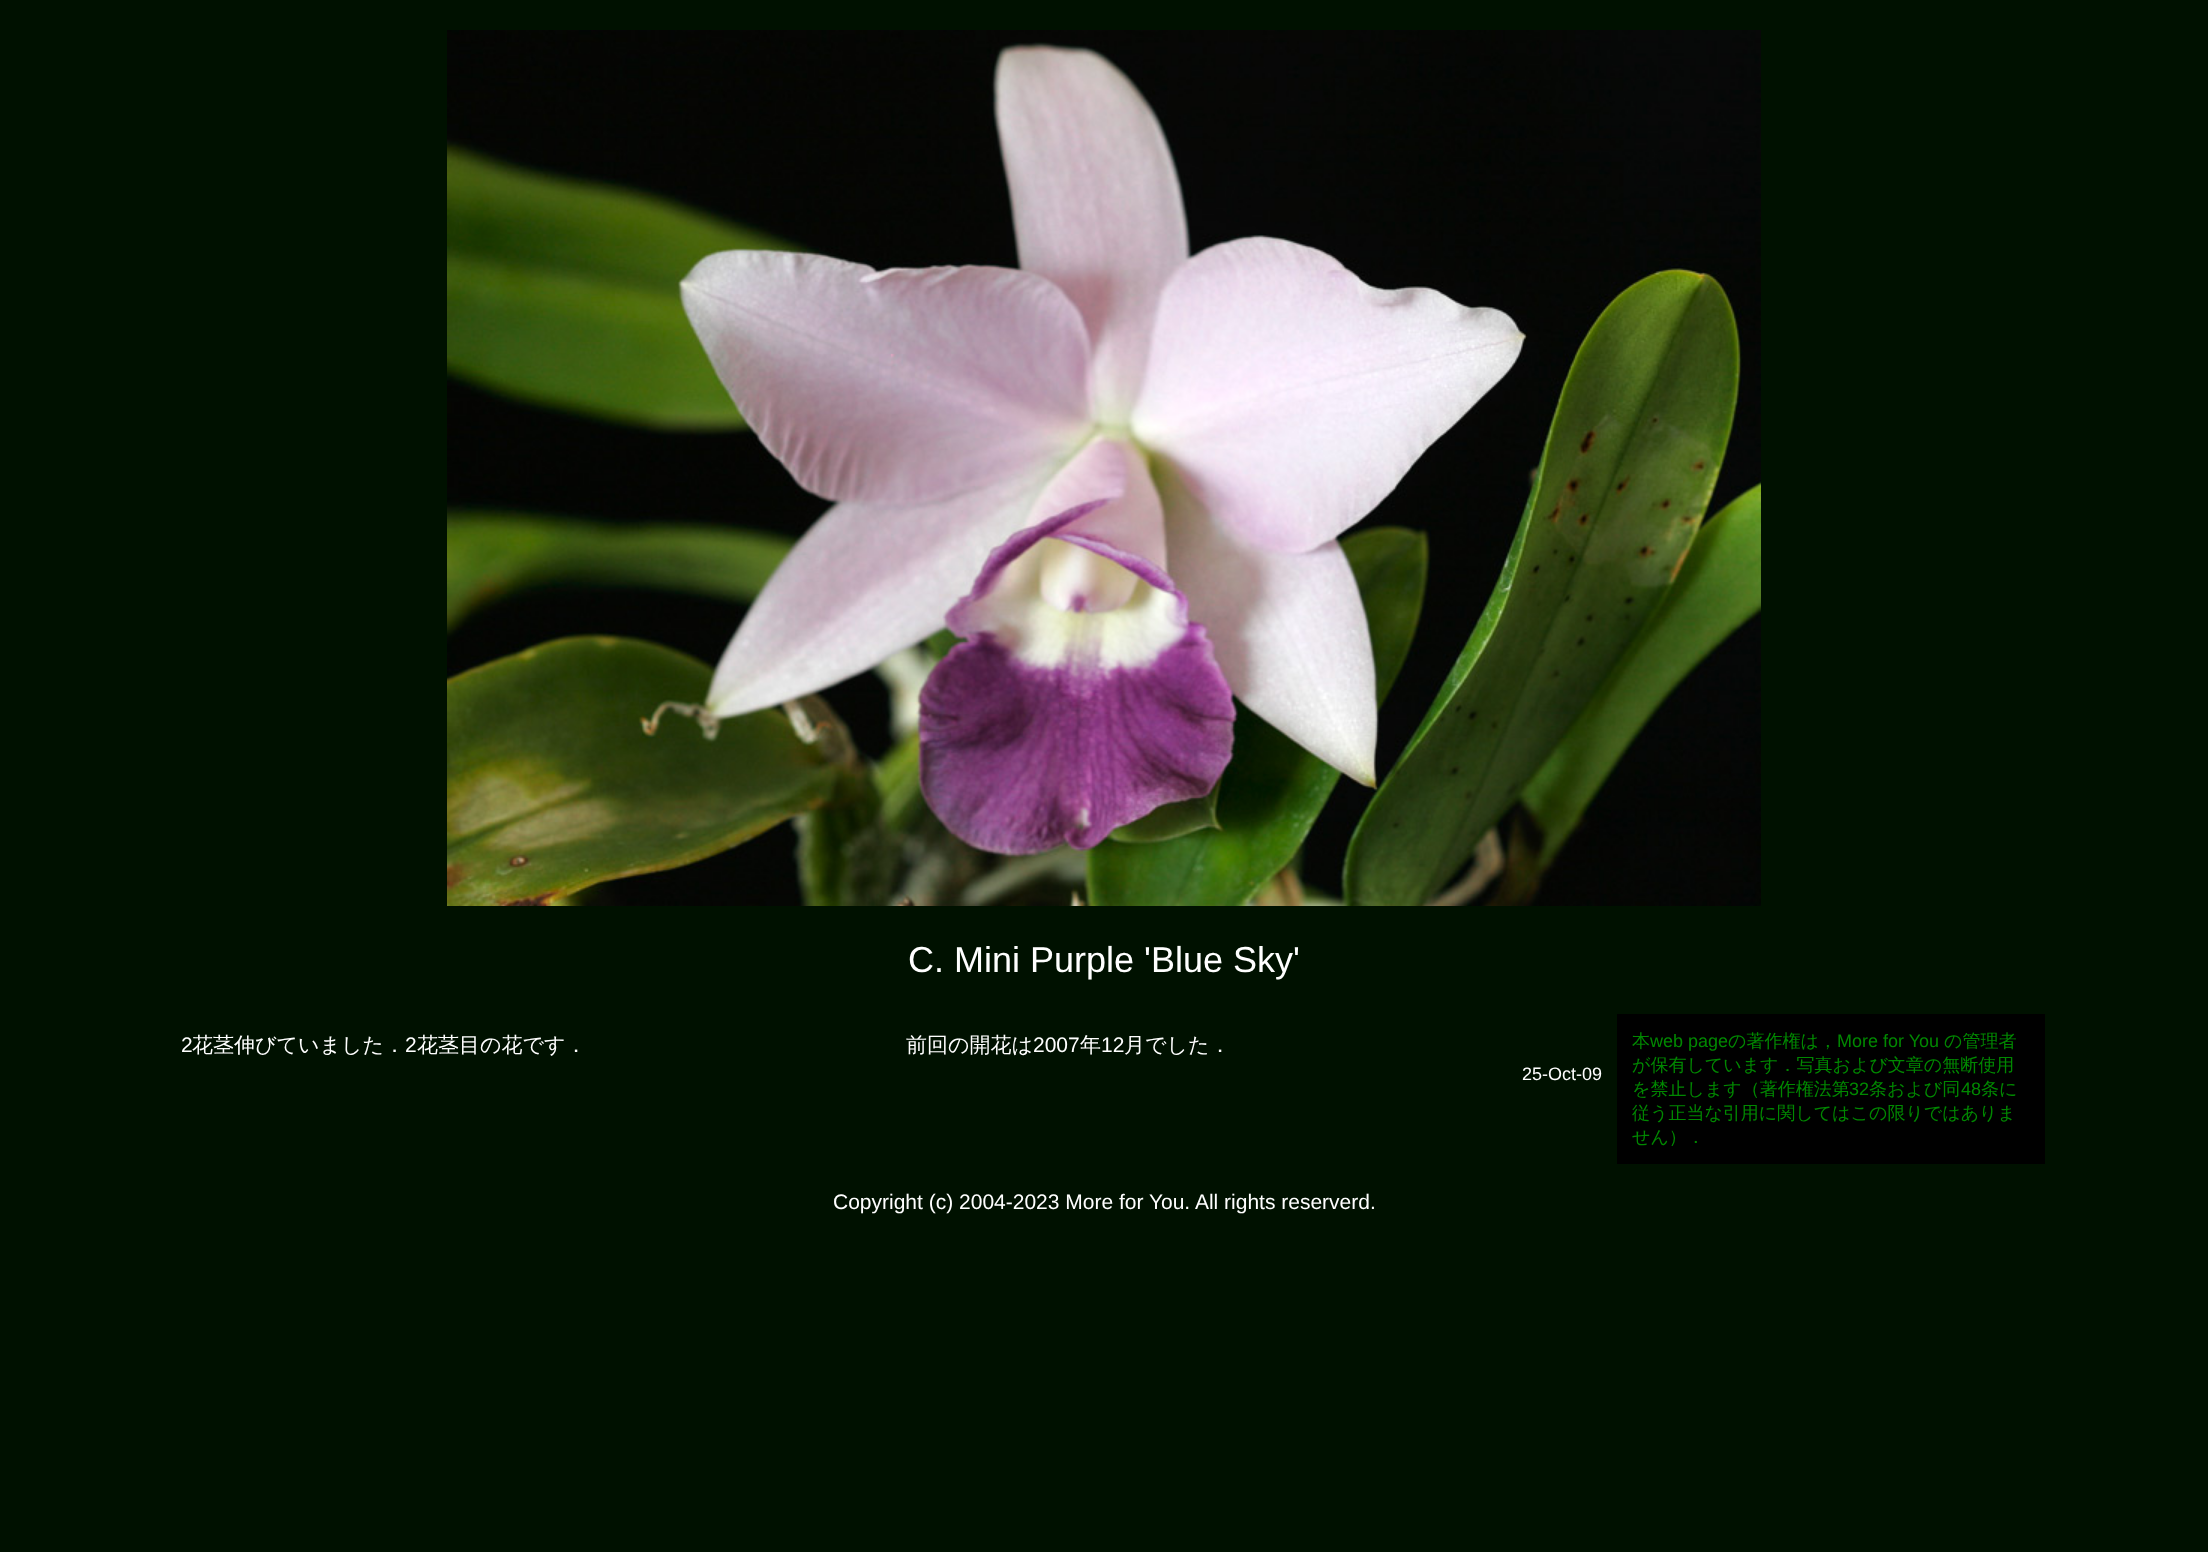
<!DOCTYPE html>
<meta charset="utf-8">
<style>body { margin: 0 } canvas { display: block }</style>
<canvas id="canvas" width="2208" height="1552"></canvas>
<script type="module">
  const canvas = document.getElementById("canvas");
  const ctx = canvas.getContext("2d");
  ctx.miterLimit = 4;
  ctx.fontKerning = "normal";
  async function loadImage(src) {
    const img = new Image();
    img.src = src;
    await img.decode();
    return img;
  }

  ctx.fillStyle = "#001100";
  ctx.fillRect(0, 0, 2208, 1552);
  ctx.drawImage(await loadImage("img1.png"), 447, 30, 1314, 876);
  ctx.font = "36px Liberation Sans";
  ctx.fillStyle = "#ffffff";
  ctx.fillText("C. Mini Purple 'Blue Sky'", 908, 972);
  ctx.font = "21px Liberation Sans";
  ctx.fillText("2", 181, 1052);
  ctx.font = "500 21px WenQuanYi Zen Hei";
  ctx.fillText("花茎伸びていました．", 192, 1052);
  ctx.font = "21px Liberation Sans";
  ctx.fillText("2", 405, 1052);
  ctx.font = "500 21px WenQuanYi Zen Hei";
  ctx.fillText("花茎目の花です．", 417, 1052);
  ctx.fillText("前回の開花は", 906, 1052);
  ctx.font = "21px Liberation Sans";
  ctx.fillText("2007", 1033, 1052);
  ctx.font = "500 21px WenQuanYi Zen Hei";
  ctx.fillText("年", 1080, 1052);
  ctx.font = "21px Liberation Sans";
  ctx.fillText("12", 1101, 1052);
  ctx.font = "500 21px WenQuanYi Zen Hei";
  ctx.fillText("月でした．", 1124, 1052);
  ctx.font = "18px Liberation Sans";
  ctx.fillText("25-Oct-09", 1522, 1080);
  ctx.fillStyle = "#000000";
  ctx.fillRect(1617, 1014, 428, 150);
  ctx.font = "500 18px WenQuanYi Zen Hei";
  ctx.fillStyle = "#008800";
  ctx.fillText("本", 1632, 1047);
  ctx.font = "18px Liberation Sans";
  ctx.fillText("web page", 1650, 1047);
  ctx.font = "500 18px WenQuanYi Zen Hei";
  ctx.fillText("の著作権は，", 1728, 1047);
  ctx.font = "18px Liberation Sans";
  ctx.fillText("More for You", 1837, 1047);
  ctx.font = "500 18px WenQuanYi Zen Hei";
  ctx.fillText("の管理者", 1944, 1047);
  ctx.fillText("が保有しています．写真および文章の無断使用", 1632, 1071);
  ctx.fillText("を禁止します（著作権法第", 1632, 1095);
  ctx.font = "18px Liberation Sans";
  ctx.fillText("32", 1849, 1095);
  ctx.font = "500 18px WenQuanYi Zen Hei";
  ctx.fillText("条および同", 1869, 1095);
  ctx.font = "18px Liberation Sans";
  ctx.fillText("48", 1961, 1095);
  ctx.font = "500 18px WenQuanYi Zen Hei";
  ctx.fillText("条に", 1981, 1095);
  ctx.fillText("従う正当な引用に関してはこの限りではありま", 1632, 1119);
  ctx.fillText("せん）．", 1632, 1143);
  ctx.font = "21px Liberation Sans";
  ctx.fillStyle = "#ffffff";
  ctx.fillText("Copyright (c) 2004-2023 More for You. All rights reserverd.", 833, 1209);
</script>
